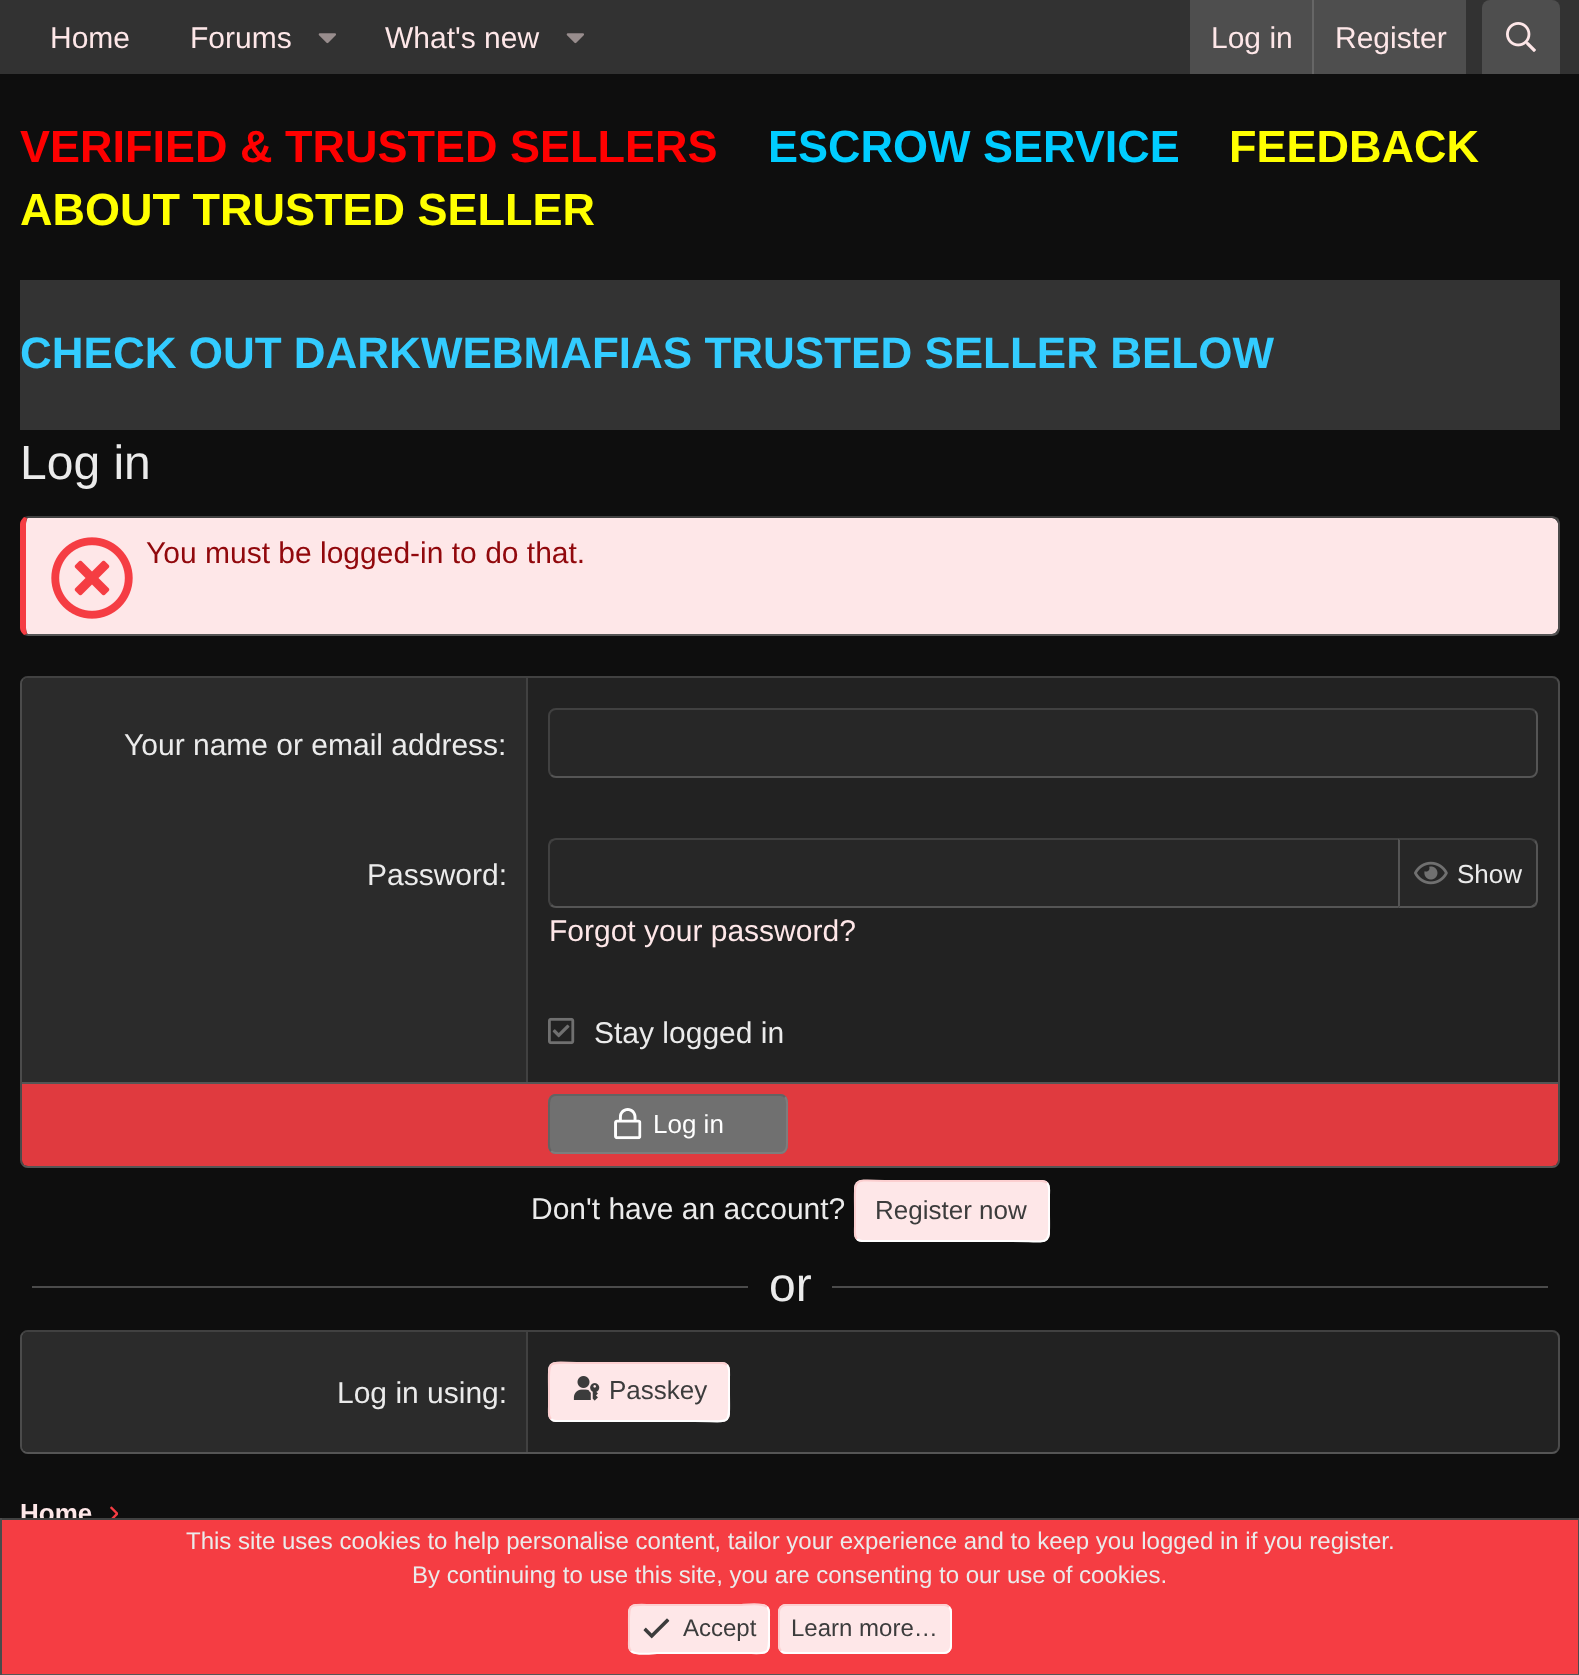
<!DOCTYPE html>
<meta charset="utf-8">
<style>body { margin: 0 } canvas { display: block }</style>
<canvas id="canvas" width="1579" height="1675"></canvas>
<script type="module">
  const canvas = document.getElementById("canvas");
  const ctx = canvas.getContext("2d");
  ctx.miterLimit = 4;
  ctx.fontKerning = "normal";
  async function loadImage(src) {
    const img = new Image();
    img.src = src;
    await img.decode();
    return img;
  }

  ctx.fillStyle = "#0e0e0e";
  ctx.fillRect(0, 0, 1579, 1675);
  ctx.fillStyle = "#323232";
  ctx.fillRect(0, 0, 1579, 74);
  ctx.font = "30px Liberation Sans";
  ctx.fillStyle = "#fee7e8";
  ctx.fillText("Home", 50, 48);
  ctx.fillText("Forums", 190, 48);
  ctx.drawImage(await loadImage("img1.png"), 318, 33, 18, 11);
  ctx.fillText("What's new", 385, 48);
  ctx.drawImage(await loadImage("img1.png"), 566, 33, 18, 11);
  ctx.fillStyle = "#4e4e4e";
  ctx.fillRect(1190, 0, 276, 74);
  ctx.fillStyle = "#fee7e8";
  ctx.fillText("Log in", 1211, 48);
  ctx.fillStyle = "#666666";
  ctx.fillRect(1312, 0, 2, 74);
  ctx.fillStyle = "#fee7e8";
  ctx.fillText("Register", 1335, 48);
  ctx.fillStyle = "#4e4e4e";
  ctx.beginPath();
  ctx.roundRect(1482, 0, 78, 74, [8, 8, 0, 0]);
  ctx.fill();
  ctx.drawImage(await loadImage("img2.png"), 1506, 22, 30, 30);
  ctx.font = "bold 45px Liberation Sans";
  ctx.fillStyle = "#ff0000";
  ctx.fillText("VERIFIED & TRUSTED SELLERS", 20, 162);
  ctx.fillStyle = "#00ccff";
  ctx.fillText("ESCROW SERVICE", 768, 162);
  ctx.fillStyle = "#ffff00";
  ctx.fillText("FEEDBACK", 1229, 162);
  ctx.fillText("ABOUT TRUSTED SELLER", 20, 225);
  ctx.fillStyle = "#333333";
  ctx.fillRect(20, 280, 1540, 150);
  ctx.font = "bold 44px Liberation Sans";
  ctx.fillStyle = "#33ccff";
  ctx.fillText("CHECK OUT DARKWEBMAFIAS TRUSTED SELLER BELOW", 20, 368);
  ctx.font = "48px Liberation Sans";
  ctx.fillStyle = "#ebebeb";
  ctx.fillText("Log in", 20, 479);
  ctx.fillStyle = "#fee7e8";
  ctx.beginPath();
  ctx.moveTo(28, 518);
  ctx.lineTo(1552, 518);
  ctx.bezierCurveTo(1555, 518, 1558, 521, 1558, 524);
  ctx.lineTo(1558, 628);
  ctx.bezierCurveTo(1558, 631, 1555, 634, 1552, 634);
  ctx.lineTo(28, 634);
  ctx.bezierCurveTo(27, 634, 26, 631, 26, 628);
  ctx.lineTo(26, 524);
  ctx.bezierCurveTo(26, 521, 27, 518, 28, 518);
  ctx.closePath();
  ctx.fill();
  ctx.fillStyle = "#414141";
  ctx.beginPath();
  ctx.moveTo(28, 516);
  ctx.lineTo(24, 517);
  ctx.lineTo(27, 518);
  ctx.lineTo(28, 518);
  ctx.lineTo(1552, 518);
  ctx.bezierCurveTo(1554, 518, 1555, 519, 1556, 520);
  ctx.lineTo(1558, 518);
  ctx.bezierCurveTo(1556, 517, 1554, 516, 1552, 516);
  ctx.closePath();
  ctx.fill();
  ctx.fillStyle = "#4b4b4b";
  ctx.beginPath();
  ctx.moveTo(1560, 628);
  ctx.lineTo(1560, 524);
  ctx.bezierCurveTo(1560, 522, 1559, 520, 1558, 518);
  ctx.lineTo(1556, 520);
  ctx.lineTo(1558, 523);
  ctx.lineTo(1558, 629);
  ctx.lineTo(1556, 632);
  ctx.lineTo(1558, 634);
  ctx.bezierCurveTo(1559, 632, 1560, 630, 1560, 628);
  ctx.closePath();
  ctx.fill();
  ctx.fillStyle = "#555555";
  ctx.beginPath();
  ctx.moveTo(28, 636);
  ctx.lineTo(1552, 636);
  ctx.bezierCurveTo(1554, 636, 1556, 635, 1558, 634);
  ctx.lineTo(1556, 632);
  ctx.bezierCurveTo(1555, 633, 1554, 634, 1552, 634);
  ctx.lineTo(28, 634);
  ctx.lineTo(27, 634);
  ctx.lineTo(24, 635);
  ctx.closePath();
  ctx.fill();
  ctx.fillStyle = "#f53d43";
  ctx.beginPath();
  ctx.moveTo(20, 524);
  ctx.lineTo(20, 628);
  ctx.bezierCurveTo(20, 631, 22, 633, 24, 635);
  ctx.lineTo(27, 634);
  ctx.bezierCurveTo(27, 633, 26, 630, 26, 628);
  ctx.lineTo(26, 524);
  ctx.bezierCurveTo(26, 522, 27, 519, 27, 518);
  ctx.lineTo(24, 517);
  ctx.bezierCurveTo(22, 519, 20, 521, 20, 524);
  ctx.closePath();
  ctx.fill();
  ctx.drawImage(await loadImage("img3.png"), 51, 537, 82, 82);
  ctx.font = "30px Liberation Sans";
  ctx.fillStyle = "#91080c";
  ctx.fillText("You must be logged-in to do that.", 146, 563);
  ctx.fillStyle = "#222222";
  ctx.beginPath();
  ctx.roundRect(20, 676, 1540, 492, 8);
  ctx.fill();
  ctx.beginPath();
  ctx.moveTo(23, 679);
  ctx.bezierCurveTo(24.5, 677.5, 26, 677, 28, 677);
  ctx.lineTo(1552, 677);
  ctx.bezierCurveTo(1554, 677, 1555.5, 677.5, 1557, 679);
  ctx.strokeStyle = "#414141";
  ctx.lineWidth = 2;
  ctx.stroke();
  ctx.beginPath();
  ctx.moveTo(1557, 679);
  ctx.bezierCurveTo(1558.5, 680.5, 1559, 682, 1559, 684);
  ctx.lineTo(1559, 1160);
  ctx.bezierCurveTo(1559, 1162, 1558.5, 1163.5, 1557, 1165);
  ctx.strokeStyle = "#4b4b4b";
  ctx.stroke();
  ctx.beginPath();
  ctx.moveTo(1557, 1165);
  ctx.bezierCurveTo(1555.5, 1166.5, 1554, 1167, 1552, 1167);
  ctx.lineTo(28, 1167);
  ctx.bezierCurveTo(26, 1167, 24.5, 1166.5, 23, 1165);
  ctx.strokeStyle = "#555555";
  ctx.stroke();
  ctx.beginPath();
  ctx.moveTo(23, 1165);
  ctx.bezierCurveTo(21.5, 1163.5, 21, 1162, 21, 1160);
  ctx.lineTo(21, 684);
  ctx.bezierCurveTo(21, 682, 21.5, 680.5, 23, 679);
  ctx.strokeStyle = "#4b4b4b";
  ctx.stroke();
  ctx.fillStyle = "#2b2b2b";
  ctx.beginPath();
  ctx.roundRect(22, 678, 506, 130, [6, 0, 0, 0]);
  ctx.fill();
  ctx.fillStyle = "#414141";
  ctx.fillRect(526, 678, 2, 404);
  ctx.fillStyle = "#ebebeb";
  ctx.fillText("Your name or email address:", 124, 755);
  ctx.fillStyle = "#272727";
  ctx.beginPath();
  ctx.roundRect(548, 708, 990, 70, 8);
  ctx.fill();
  ctx.beginPath();
  ctx.moveTo(1535, 711);
  ctx.bezierCurveTo(1536.5, 712.5, 1537, 714, 1537, 716);
  ctx.lineTo(1537, 770);
  ctx.bezierCurveTo(1537, 772, 1536.5, 773.5, 1535, 775);
  ctx.bezierCurveTo(1533.5, 776.5, 1532, 777, 1530, 777);
  ctx.lineTo(556, 777);
  ctx.bezierCurveTo(554, 777, 552.5, 776.5, 551, 775);
  ctx.strokeStyle = "#555555";
  ctx.stroke();
  ctx.beginPath();
  ctx.moveTo(551, 775);
  ctx.bezierCurveTo(549.5, 773.5, 549, 772, 549, 770);
  ctx.lineTo(549, 716);
  ctx.bezierCurveTo(549, 714, 549.5, 712.5, 551, 711);
  ctx.bezierCurveTo(552.5, 709.5, 554, 709, 556, 709);
  ctx.lineTo(1530, 709);
  ctx.bezierCurveTo(1532, 709, 1533.5, 709.5, 1535, 711);
  ctx.strokeStyle = "#414141";
  ctx.stroke();
  ctx.fillStyle = "#2b2b2b";
  ctx.fillRect(22, 808, 504, 274);
  ctx.fillStyle = "#ebebeb";
  ctx.fillText("Password:", 367, 885);
  ctx.fillStyle = "#272727";
  ctx.beginPath();
  ctx.roundRect(548, 838, 850, 70, [8, 0, 0, 8]);
  ctx.fill();
  ctx.fillStyle = "#414141";
  ctx.beginPath();
  ctx.moveTo(556, 838);
  ctx.bezierCurveTo(554, 838, 552, 839, 550, 840);
  ctx.lineTo(552, 842);
  ctx.bezierCurveTo(553, 841, 554, 840, 556, 840);
  ctx.lineTo(1398, 840);
  ctx.lineTo(1398, 838);
  ctx.closePath();
  ctx.fill();
  ctx.fillStyle = "#555555";
  ctx.beginPath();
  ctx.moveTo(1398, 908);
  ctx.lineTo(1398, 906);
  ctx.lineTo(556, 906);
  ctx.bezierCurveTo(554, 906, 553, 905, 552, 904);
  ctx.lineTo(550, 906);
  ctx.bezierCurveTo(552, 907, 554, 908, 556, 908);
  ctx.closePath();
  ctx.fill();
  ctx.fillStyle = "#414141";
  ctx.beginPath();
  ctx.moveTo(548, 846);
  ctx.lineTo(548, 900);
  ctx.bezierCurveTo(548, 902, 549, 904, 550, 906);
  ctx.lineTo(552, 904);
  ctx.bezierCurveTo(551, 903, 550, 902, 550, 900);
  ctx.lineTo(550, 846);
  ctx.bezierCurveTo(550, 844, 551, 843, 552, 842);
  ctx.lineTo(550, 840);
  ctx.bezierCurveTo(549, 842, 548, 844, 548, 846);
  ctx.closePath();
  ctx.fill();
  ctx.fillStyle = "#272727";
  ctx.beginPath();
  ctx.roundRect(1398, 838, 140, 70, [0, 8, 8, 0]);
  ctx.fill();
  ctx.fillStyle = "#414141";
  ctx.beginPath();
  ctx.moveTo(1398, 838);
  ctx.lineTo(1400, 840);
  ctx.lineTo(1531, 840);
  ctx.lineTo(1534, 842);
  ctx.lineTo(1536, 840);
  ctx.bezierCurveTo(1534, 839, 1532, 838, 1530, 838);
  ctx.closePath();
  ctx.fill();
  ctx.fillStyle = "#555555";
  ctx.beginPath();
  ctx.moveTo(1538, 900);
  ctx.lineTo(1538, 846);
  ctx.bezierCurveTo(1538, 844, 1537, 842, 1536, 840);
  ctx.lineTo(1534, 842);
  ctx.bezierCurveTo(1535, 843, 1536, 844, 1536, 846);
  ctx.lineTo(1536, 900);
  ctx.bezierCurveTo(1536, 902, 1535, 903, 1534, 904);
  ctx.lineTo(1536, 906);
  ctx.bezierCurveTo(1537, 904, 1538, 902, 1538, 900);
  ctx.closePath();
  ctx.fill();
  ctx.beginPath();
  ctx.moveTo(1530, 908);
  ctx.bezierCurveTo(1532, 908, 1534, 907, 1536, 906);
  ctx.lineTo(1534, 904);
  ctx.lineTo(1531, 906);
  ctx.lineTo(1400, 906);
  ctx.lineTo(1398, 908);
  ctx.closePath();
  ctx.fill();
  ctx.beginPath();
  ctx.moveTo(1398, 838);
  ctx.lineTo(1398, 908);
  ctx.lineTo(1400, 906);
  ctx.lineTo(1400, 840);
  ctx.closePath();
  ctx.fill();
  ctx.drawImage(await loadImage("img4.png"), 1414, 861, 34, 24);
  ctx.font = "26px Liberation Sans";
  ctx.fillStyle = "#ebebeb";
  ctx.fillText("Show", 1457, 883);
  ctx.font = "30px Liberation Sans";
  ctx.fillStyle = "#fee7e8";
  ctx.fillText("Forgot your password?", 549, 941);
  ctx.drawImage(await loadImage("img5.png"), 548, 1017, 27, 28);
  ctx.fillStyle = "#ebebeb";
  ctx.fillText("Stay logged in", 594, 1043);
  ctx.fillStyle = "rgba(245, 61, 67, 0.9)";
  ctx.beginPath();
  ctx.roundRect(22, 1082, 1536, 84, [0, 0, 6, 6]);
  ctx.fill();
  ctx.fillStyle = "#555555";
  ctx.fillRect(22, 1082, 1536, 2);
  ctx.fillStyle = "#707070";
  ctx.beginPath();
  ctx.roundRect(548, 1094, 240, 60, 8);
  ctx.fill();
  ctx.beginPath();
  ctx.moveTo(785, 1097);
  ctx.bezierCurveTo(788, 1100, 787, 1105.5, 787, 1109.5);
  ctx.lineTo(787, 1138.5);
  ctx.bezierCurveTo(787, 1144, 788, 1153, 780, 1153);
  ctx.lineTo(555.5, 1153);
  ctx.bezierCurveTo(553.5, 1153, 552, 1152, 551, 1151);
  ctx.strokeStyle = "#7d7d7d";
  ctx.stroke();
  ctx.beginPath();
  ctx.moveTo(551, 1151);
  ctx.bezierCurveTo(548, 1148, 549, 1142.5, 549, 1138.5);
  ctx.lineTo(549, 1109.5);
  ctx.bezierCurveTo(549, 1104, 548, 1095, 556, 1095);
  ctx.lineTo(780.5, 1095);
  ctx.bezierCurveTo(782.5, 1095, 784, 1096, 785, 1097);
  ctx.strokeStyle = "#636363";
  ctx.stroke();
  ctx.drawImage(await loadImage("img6.png"), 614, 1108, 28, 32);
  ctx.font = "26px Liberation Sans";
  ctx.fillStyle = "#ffffff";
  ctx.fillText("Log in", 653, 1133);
  ctx.font = "30px Liberation Sans";
  ctx.fillStyle = "#ebebeb";
  ctx.fillText("Don't have an account?", 531, 1219);
  ctx.fillStyle = "#fee7e8";
  ctx.beginPath();
  ctx.roundRect(854, 1180, 196, 62, 8);
  ctx.fill();
  ctx.beginPath();
  ctx.moveTo(1047, 1183);
  ctx.bezierCurveTo(1050, 1186, 1049, 1192, 1049, 1195.5);
  ctx.lineTo(1049, 1211);
  ctx.bezierCurveTo(1049, 1248, 1053, 1241, 1012, 1241);
  ctx.lineTo(862, 1241);
  ctx.lineTo(858, 1240);
  ctx.lineTo(857, 1239);
  ctx.strokeStyle = "#ffffff";
  ctx.stroke();
  ctx.beginPath();
  ctx.moveTo(857, 1239);
  ctx.bezierCurveTo(854, 1236, 855, 1230, 855, 1226.5);
  ctx.lineTo(855, 1211);
  ctx.bezierCurveTo(855, 1174, 851, 1181, 892, 1181);
  ctx.lineTo(1042, 1181);
  ctx.lineTo(1046, 1182);
  ctx.lineTo(1047, 1183);
  ctx.strokeStyle = "#fccfd0";
  ctx.stroke();
  ctx.font = "26px Liberation Sans";
  ctx.fillStyle = "#3c3c3c";
  ctx.fillText("Register now", 875, 1219);
  ctx.fillStyle = "#4b4b4b";
  ctx.fillRect(32, 1286, 716, 2);
  ctx.font = "48px Liberation Sans";
  ctx.fillStyle = "#ebebeb";
  ctx.fillText("or", 769, 1301);
  ctx.fillStyle = "#4b4b4b";
  ctx.fillRect(832, 1286, 716, 2);
  ctx.fillStyle = "#222222";
  ctx.beginPath();
  ctx.roundRect(20, 1330, 1540, 124, 8);
  ctx.fill();
  ctx.beginPath();
  ctx.moveTo(23, 1333);
  ctx.bezierCurveTo(24.5, 1331.5, 26, 1331, 28, 1331);
  ctx.lineTo(1552, 1331);
  ctx.bezierCurveTo(1554, 1331, 1555.5, 1331.5, 1557, 1333);
  ctx.strokeStyle = "#414141";
  ctx.stroke();
  ctx.beginPath();
  ctx.moveTo(1557, 1333);
  ctx.bezierCurveTo(1558.5, 1334.5, 1559, 1336, 1559, 1338);
  ctx.lineTo(1559, 1446);
  ctx.bezierCurveTo(1559, 1448, 1558.5, 1449.5, 1557, 1451);
  ctx.strokeStyle = "#4b4b4b";
  ctx.stroke();
  ctx.beginPath();
  ctx.moveTo(1557, 1451);
  ctx.bezierCurveTo(1555.5, 1452.5, 1554, 1453, 1552, 1453);
  ctx.lineTo(28, 1453);
  ctx.bezierCurveTo(26, 1453, 24.5, 1452.5, 23, 1451);
  ctx.strokeStyle = "#555555";
  ctx.stroke();
  ctx.beginPath();
  ctx.moveTo(23, 1451);
  ctx.bezierCurveTo(21.5, 1449.5, 21, 1448, 21, 1446);
  ctx.lineTo(21, 1338);
  ctx.bezierCurveTo(21, 1336, 21.5, 1334.5, 23, 1333);
  ctx.strokeStyle = "#4b4b4b";
  ctx.stroke();
  ctx.fillStyle = "#2b2b2b";
  ctx.beginPath();
  ctx.roundRect(22, 1332, 506, 120, [6, 0, 0, 6]);
  ctx.fill();
  ctx.fillStyle = "#414141";
  ctx.fillRect(526, 1332, 2, 120);
  ctx.font = "30px Liberation Sans";
  ctx.fillStyle = "#ebebeb";
  ctx.fillText("Log in using:", 337, 1403);
  ctx.fillStyle = "#fee7e8";
  ctx.beginPath();
  ctx.roundRect(548, 1362, 182, 60, 8);
  ctx.fill();
  ctx.beginPath();
  ctx.moveTo(727, 1365);
  ctx.bezierCurveTo(730, 1368, 729, 1373.5, 729, 1377.5);
  ctx.lineTo(729, 1392);
  ctx.bezierCurveTo(729, 1427.5, 733, 1421, 694.5, 1421);
  ctx.lineTo(556, 1421);
  ctx.bezierCurveTo(554, 1421, 552.5, 1420.5, 551, 1419);
  ctx.strokeStyle = "#ffffff";
  ctx.stroke();
  ctx.beginPath();
  ctx.moveTo(551, 1419);
  ctx.bezierCurveTo(548, 1416, 549, 1410.5, 549, 1406.5);
  ctx.lineTo(549, 1392);
  ctx.bezierCurveTo(549, 1356.5, 545, 1363, 583.5, 1363);
  ctx.lineTo(722, 1363);
  ctx.bezierCurveTo(724, 1363, 725.5, 1363.5, 727, 1365);
  ctx.strokeStyle = "#fccfd0";
  ctx.stroke();
  ctx.drawImage(await loadImage("img7.png"), 573, 1376, 27, 25);
  ctx.font = "26px Liberation Sans";
  ctx.fillStyle = "#3c3c3c";
  ctx.fillText("Passkey", 609, 1399);
  ctx.font = "bold 26px Liberation Sans";
  ctx.fillStyle = "#fee7e8";
  ctx.fillText("Home", 20, 1522);
  ctx.drawImage(await loadImage("img8.png"), 110, 1506, 8, 12);
  ctx.fillStyle = "#f53d43";
  ctx.fillRect(2, 1520, 1576, 154);
  ctx.fillStyle = "#414141";
  ctx.fillRect(0, 1518, 1579, 2);
  ctx.fillStyle = "#4b4b4b";
  ctx.fillRect(1578, 1518, 1, 157);
  ctx.fillStyle = "#555555";
  ctx.fillRect(0, 1674, 1579, 1);
  ctx.fillStyle = "#4b4b4b";
  ctx.fillRect(0, 1518, 2, 157);
  ctx.font = "24px Liberation Sans";
  ctx.fillStyle = "#ebebeb";
  ctx.fillText("This site uses cookies to help personalise content, tailor your experience and to keep you logged in if you register.", 186, 1549);
  ctx.fillText("By continuing to use this site, you are consenting to our use of cookies.", 412, 1583);
  ctx.fillStyle = "#fee7e8";
  ctx.beginPath();
  ctx.roundRect(628, 1604, 142, 50, 8);
  ctx.fill();
  ctx.beginPath();
  ctx.moveTo(767, 1607);
  ctx.bezierCurveTo(770, 1610, 769, 1614, 769, 1617.5);
  ctx.lineTo(769, 1629);
  ctx.bezierCurveTo(769, 1657, 771.5, 1653, 741, 1653);
  ctx.lineTo(657, 1653);
  ctx.bezierCurveTo(655, 1653, 636, 1656, 631, 1651);
  ctx.strokeStyle = "#ffffff";
  ctx.stroke();
  ctx.beginPath();
  ctx.moveTo(631, 1651);
  ctx.bezierCurveTo(628, 1648, 629, 1644, 629, 1640.5);
  ctx.lineTo(629, 1629);
  ctx.bezierCurveTo(629, 1601, 626.5, 1605, 657, 1605);
  ctx.lineTo(741, 1605);
  ctx.bezierCurveTo(743, 1605, 762, 1602, 767, 1607);
  ctx.strokeStyle = "#fccfd0";
  ctx.stroke();
  ctx.drawImage(await loadImage("img9.png"), 643, 1618, 27, 21);
  ctx.fillStyle = "#3c3c3c";
  ctx.fillText("Accept", 683, 1636);
  ctx.fillStyle = "#fee7e8";
  ctx.beginPath();
  ctx.roundRect(778, 1604, 174, 50, 8);
  ctx.fill();
  ctx.beginPath();
  ctx.moveTo(949, 1607);
  ctx.bezierCurveTo(950.5, 1608.5, 951, 1610, 951, 1612);
  ctx.lineTo(951, 1646);
  ctx.bezierCurveTo(951, 1648, 950.5, 1649.5, 949, 1651);
  ctx.bezierCurveTo(947.5, 1652.5, 946, 1653, 944, 1653);
  ctx.lineTo(786, 1653);
  ctx.bezierCurveTo(784, 1653, 782.5, 1652.5, 781, 1651);
  ctx.strokeStyle = "#ffffff";
  ctx.stroke();
  ctx.beginPath();
  ctx.moveTo(781, 1651);
  ctx.bezierCurveTo(779.5, 1649.5, 779, 1648, 779, 1646);
  ctx.lineTo(779, 1612);
  ctx.bezierCurveTo(779, 1610, 779.5, 1608.5, 781, 1607);
  ctx.bezierCurveTo(782.5, 1605.5, 784, 1605, 786, 1605);
  ctx.lineTo(944, 1605);
  ctx.bezierCurveTo(946, 1605, 947.5, 1605.5, 949, 1607);
  ctx.strokeStyle = "#fccfd0";
  ctx.stroke();
  ctx.fillStyle = "#3c3c3c";
  ctx.fillText("Learn more…", 791, 1636);
</script>
